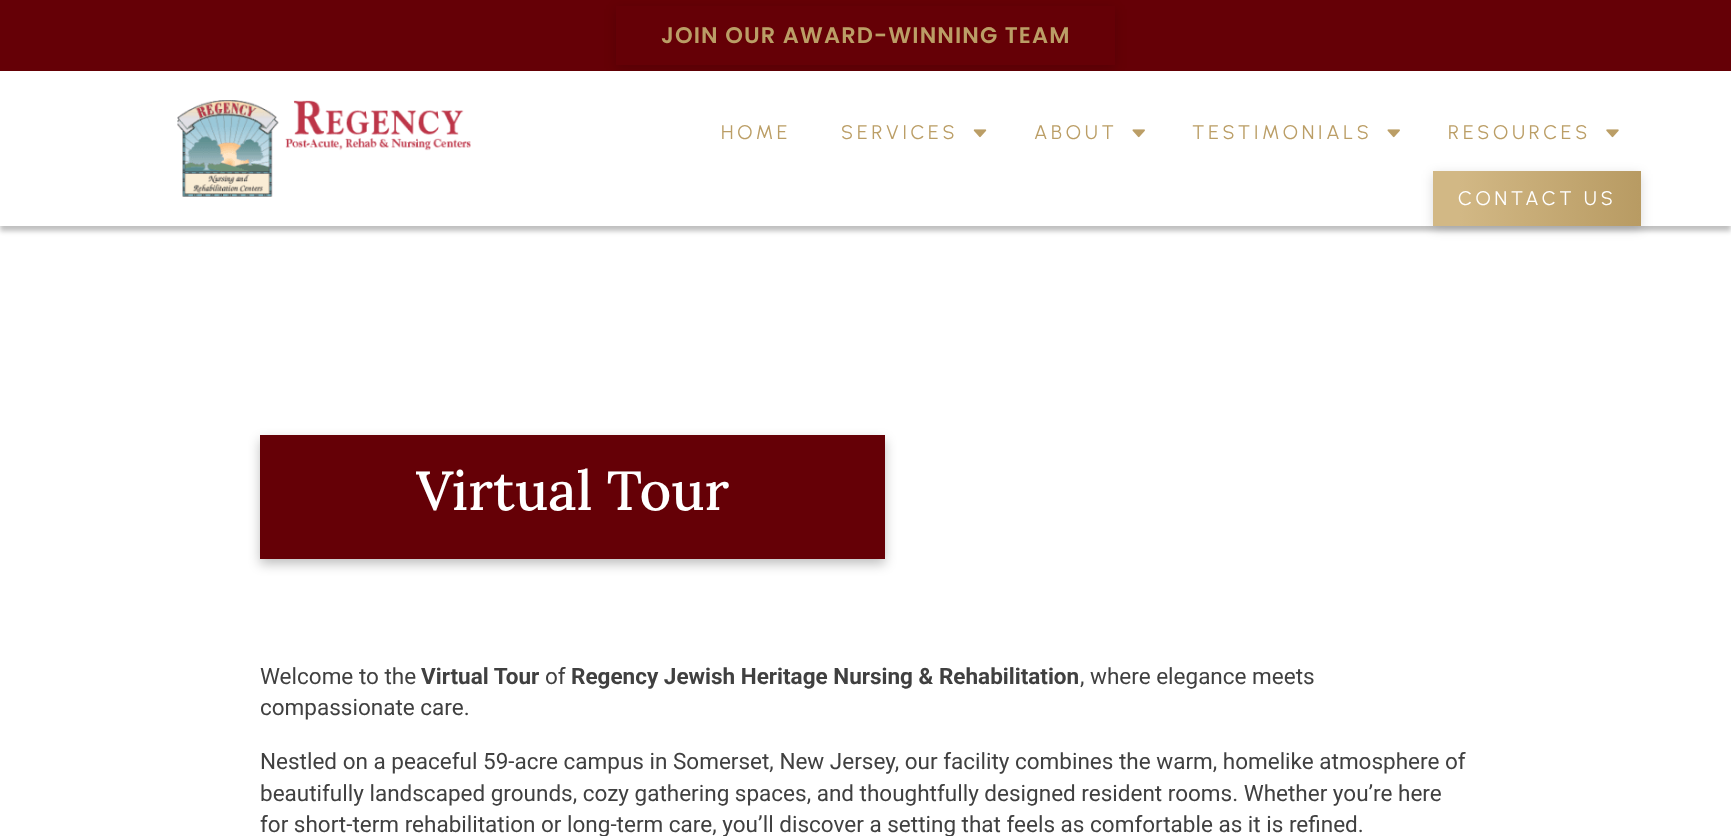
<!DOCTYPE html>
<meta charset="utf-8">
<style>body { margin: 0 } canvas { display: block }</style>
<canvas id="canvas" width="1731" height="836"></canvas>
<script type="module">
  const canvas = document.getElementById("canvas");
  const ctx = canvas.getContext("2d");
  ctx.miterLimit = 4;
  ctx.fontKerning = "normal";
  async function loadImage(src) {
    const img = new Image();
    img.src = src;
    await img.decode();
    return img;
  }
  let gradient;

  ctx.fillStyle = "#ffffff";
  ctx.fillRect(0, 0, 1731, 836);
  ctx.fillStyle = "#650006";
  ctx.fillRect(0, 0, 1731, 71);
  ctx.save();
  ctx.beginPath();
  ctx.moveTo(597, 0);
  ctx.lineTo(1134, 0);
  ctx.lineTo(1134, 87);
  ctx.lineTo(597, 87);
  ctx.closePath();
  ctx.moveTo(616, 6);
  ctx.lineTo(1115, 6);
  ctx.lineTo(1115, 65);
  ctx.lineTo(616, 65);
  ctx.closePath();
  ctx.clip("evenodd");
  ctx.fillStyle = "rgba(0, 0, 0, 0.15)";
  ctx.filter = "blur(6px)";
  ctx.beginPath();
  ctx.rect(616, 9, 499, 59);
  ctx.fill();
  ctx.filter = "none";
  ctx.restore();
  ctx.letterSpacing = "1.1px";
  ctx.font = "600 22.5px Poppins";
  ctx.fillStyle = "#bb9e66";
  ctx.fillText("JOIN OUR AWARD-WINNING TEAM", 661, 43);
  ctx.fillStyle = "rgba(0, 0, 0, 0.25)";
  ctx.filter = "blur(2.5px)";
  ctx.beginPath();
  ctx.rect(0, 76, 1731, 155);
  ctx.fill();
  ctx.filter = "none";
  ctx.fillStyle = "#ffffff";
  ctx.fillRect(0, 71, 1731, 155);
  ctx.drawImage(await loadImage("img1.png"), 177, 100, 294, 97);
  ctx.letterSpacing = "3.75px";
  ctx.font = "19.75px Urbanist";
  ctx.fillStyle = "#bb9e66";
  ctx.fillText("HOME", 721, 139);
  ctx.fillText("SERVICES", 841, 139);
  ctx.drawImage(await loadImage("img2.png"), 973, 129, 14, 9);
  ctx.fillText("ABOUT", 1034, 139);
  ctx.drawImage(await loadImage("img3.png"), 1132, 129, 13, 9);
  ctx.fillText("TESTIMONIALS", 1192, 139);
  ctx.drawImage(await loadImage("img3.png"), 1387, 129, 13, 9);
  ctx.fillText("RESOURCES", 1448, 139);
  ctx.drawImage(await loadImage("img4.png"), 1606, 129, 13, 9);
  ctx.fillStyle = "rgba(0, 0, 0, 0.15)";
  ctx.filter = "blur(6px)";
  ctx.beginPath();
  ctx.rect(1433, 174, 208, 55);
  ctx.fill();
  ctx.filter = "none";
  gradient = ctx.createLinearGradient(1432, 201, 1642, 196);
  gradient.addColorStop(0.13, "#d2b885");
  gradient.addColorStop(0.99, "#b89b63");
  ctx.fillStyle = gradient;
  ctx.fillRect(1433, 171, 208, 55);
  ctx.fillStyle = "#ffffff";
  ctx.fillText("CONTACT US", 1458, 205);
  ctx.fillStyle = "rgba(0, 0, 0, 0.25)";
  ctx.filter = "blur(6px)";
  ctx.beginPath();
  ctx.rect(260, 440, 625, 124);
  ctx.fill();
  ctx.filter = "none";
  ctx.fillStyle = "#650006";
  ctx.fillRect(260, 435, 625, 124);
  ctx.letterSpacing = "0px";
  ctx.font = "500 55px Lora";
  ctx.fillStyle = "#ffffff";
  ctx.fillText("Virtual Tour", 416, 510);
  ctx.font = "22.5px Roboto";
  ctx.fillStyle = "#404040";
  ctx.fillText("Welcome to the", 260, 684);
  ctx.font = "bold 22.5px Roboto";
  ctx.fillText("Virtual Tour", 421, 684);
  ctx.font = "22.5px Roboto";
  ctx.fillText("of", 545, 684);
  ctx.font = "bold 22.5px Roboto";
  ctx.fillText("Regency Jewish Heritage Nursing & Rehabilitation", 571, 684);
  ctx.font = "22.5px Roboto";
  ctx.fillText(", where elegance meets", 1080, 684);
  ctx.fillText("compassionate care.", 260, 715);
  ctx.fillText("Nestled on a peaceful 59-acre campus in Somerset, New Jersey, our facility combines the warm, homelike atmosphere of", 260, 769);
  ctx.fillText("beautifully landscaped grounds, cozy gathering spaces, and thoughtfully designed resident rooms. Whether you’re here", 260, 801);
  ctx.fillText("for short-term rehabilitation or long-term care, you’ll discover a setting that feels as comfortable as it is refined.", 260, 832);
</script>
